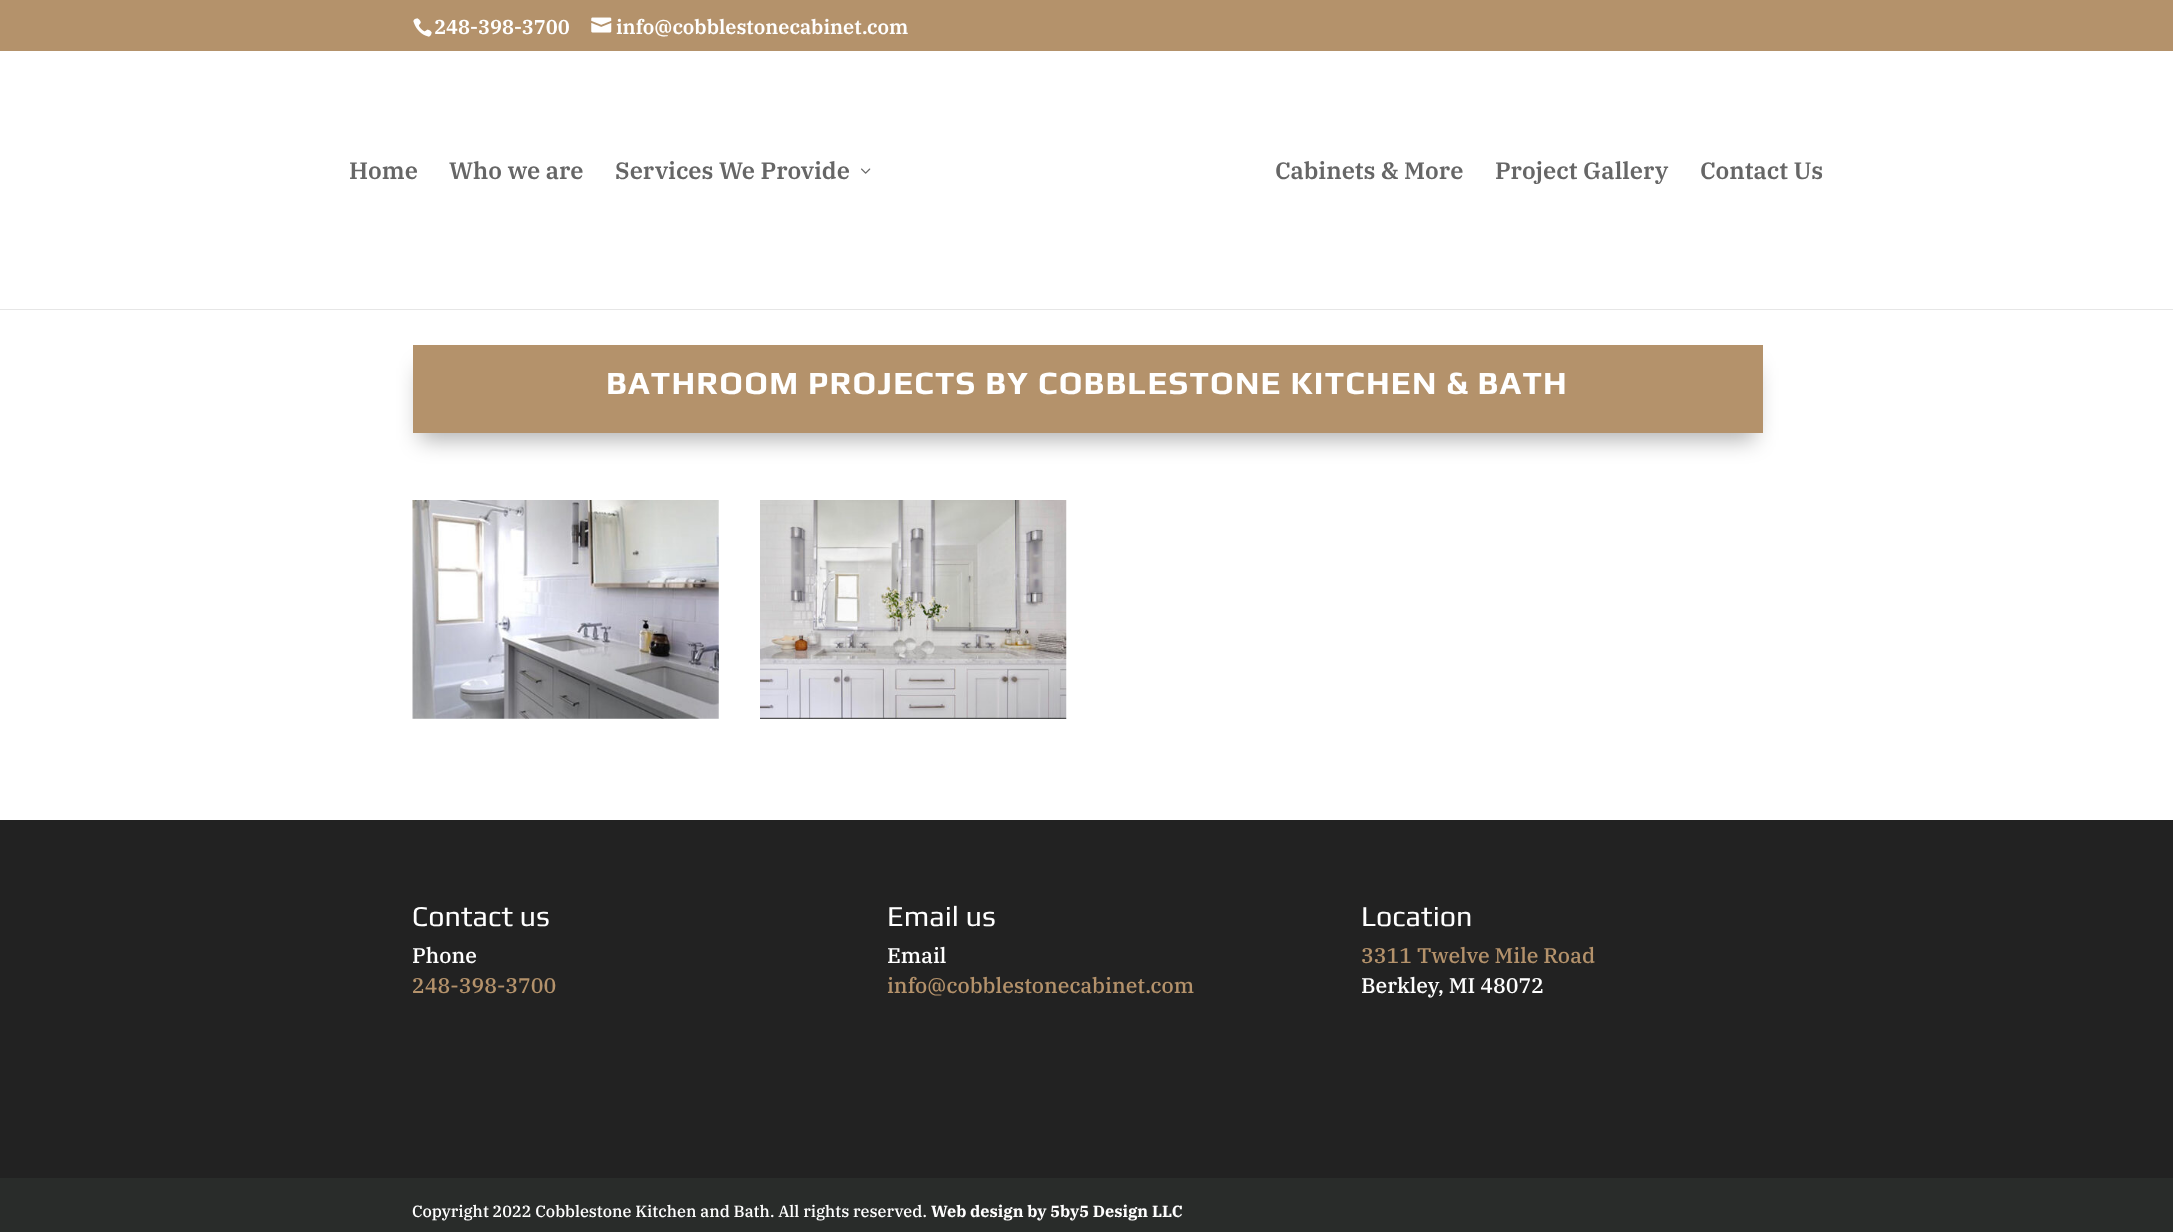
<!DOCTYPE html>
<meta charset="utf-8">
<style>body { margin: 0 } canvas { display: block }</style>
<canvas id="canvas" width="2173" height="1232"></canvas>
<script type="module">
  const canvas = document.getElementById("canvas");
  const ctx = canvas.getContext("2d");
  ctx.miterLimit = 4;
  ctx.fontKerning = "normal";
  async function loadImage(src) {
    const img = new Image();
    img.src = src;
    await img.decode();
    return img;
  }

  ctx.fillStyle = "#ffffff";
  ctx.fillRect(0, 0, 2173, 1232);
  ctx.fillStyle = "#b4926b";
  ctx.fillRect(0, 0, 2173, 51);
  ctx.drawImage(await loadImage("img1.png"), 413, 18, 19, 19);
  ctx.font = "600 20px IBM Plex Serif";
  ctx.fillStyle = "#ffffff";
  ctx.fillText("248-398-3700", 434, 34);
  ctx.drawImage(await loadImage("img2.png"), 591, 17, 21, 16);
  ctx.fillText("info@cobblestonecabinet.com", 616, 34);
  ctx.fillStyle = "#e6e6e6";
  ctx.beginPath();
  ctx.moveTo(0, 309);
  ctx.lineTo(0, 310);
  ctx.lineTo(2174, 310);
  ctx.lineTo(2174, 53);
  ctx.lineTo(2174, 309);
  ctx.closePath();
  ctx.fill();
  ctx.font = "600 23.75px IBM Plex Serif";
  ctx.fillStyle = "#666666";
  ctx.fillText("Home", 349, 179);
  ctx.fillText("Who we are", 449, 179);
  ctx.fillText("Services We Provide", 615, 179);
  ctx.drawImage(await loadImage("img3.png"), 861, 168, 10, 6);
  ctx.fillText("Cabinets & More", 1275, 179);
  ctx.fillText("Project Gallery", 1495, 179);
  ctx.fillText("Contact Us", 1700, 179);
  ctx.fillStyle = "rgba(0, 0, 0, 0.3)";
  ctx.filter = "blur(11px)";
  ctx.beginPath();
  ctx.rect(420, 368, 1335, 72);
  ctx.fill();
  ctx.filter = "none";
  ctx.fillStyle = "#b4926b";
  ctx.fillRect(413, 345, 1350, 88);
  ctx.letterSpacing = "1.25px";
  ctx.font = "bold 32.5px Play";
  ctx.fillStyle = "#ffffff";
  ctx.fillText("BATHROOM PROJECTS BY COBBLESTONE KITCHEN & BATH", 606, 394);
  ctx.drawImage(await loadImage("img4.png"), 412, 500, 307, 219);
  ctx.drawImage(await loadImage("img5.png"), 760, 500, 307, 219);
  ctx.fillStyle = "#222222";
  ctx.fillRect(0, 820, 2173, 358);
  ctx.letterSpacing = "0px";
  ctx.font = "28.75px Play";
  ctx.fillStyle = "#ffffff";
  ctx.fillText("Contact us", 412, 926);
  ctx.font = "500 21.25px IBM Plex Serif";
  ctx.fillText("Phone", 412, 963);
  ctx.fillStyle = "#b4926b";
  ctx.fillText("248-398-3700", 412, 993);
  ctx.font = "28.75px Play";
  ctx.fillStyle = "#ffffff";
  ctx.fillText("Email us", 887, 926);
  ctx.font = "500 21.25px IBM Plex Serif";
  ctx.fillText("Email", 887, 963);
  ctx.fillStyle = "#b4926b";
  ctx.fillText("info@cobblestonecabinet.com", 887, 993);
  ctx.font = "28.75px Play";
  ctx.fillStyle = "#ffffff";
  ctx.fillText("Location", 1361, 926);
  ctx.font = "500 21.25px IBM Plex Serif";
  ctx.fillStyle = "#b4926b";
  ctx.fillText("3311 Twelve Mile Road", 1361, 963);
  ctx.fillStyle = "#ffffff";
  ctx.fillText("Berkley, MI 48072", 1361, 993);
  ctx.fillStyle = "#292c2a";
  ctx.fillRect(0, 1178, 2173, 54);
  ctx.font = "500 16.25px IBM Plex Serif";
  ctx.fillStyle = "#ffffff";
  ctx.fillText("Copyright 2022 Cobblestone Kitchen and Bath. All rights reserved.", 412, 1217);
  ctx.font = "bold 16.25px IBM Plex Serif";
  ctx.fillText("Web design by 5by5 Design LLC", 931, 1217);
</script>
